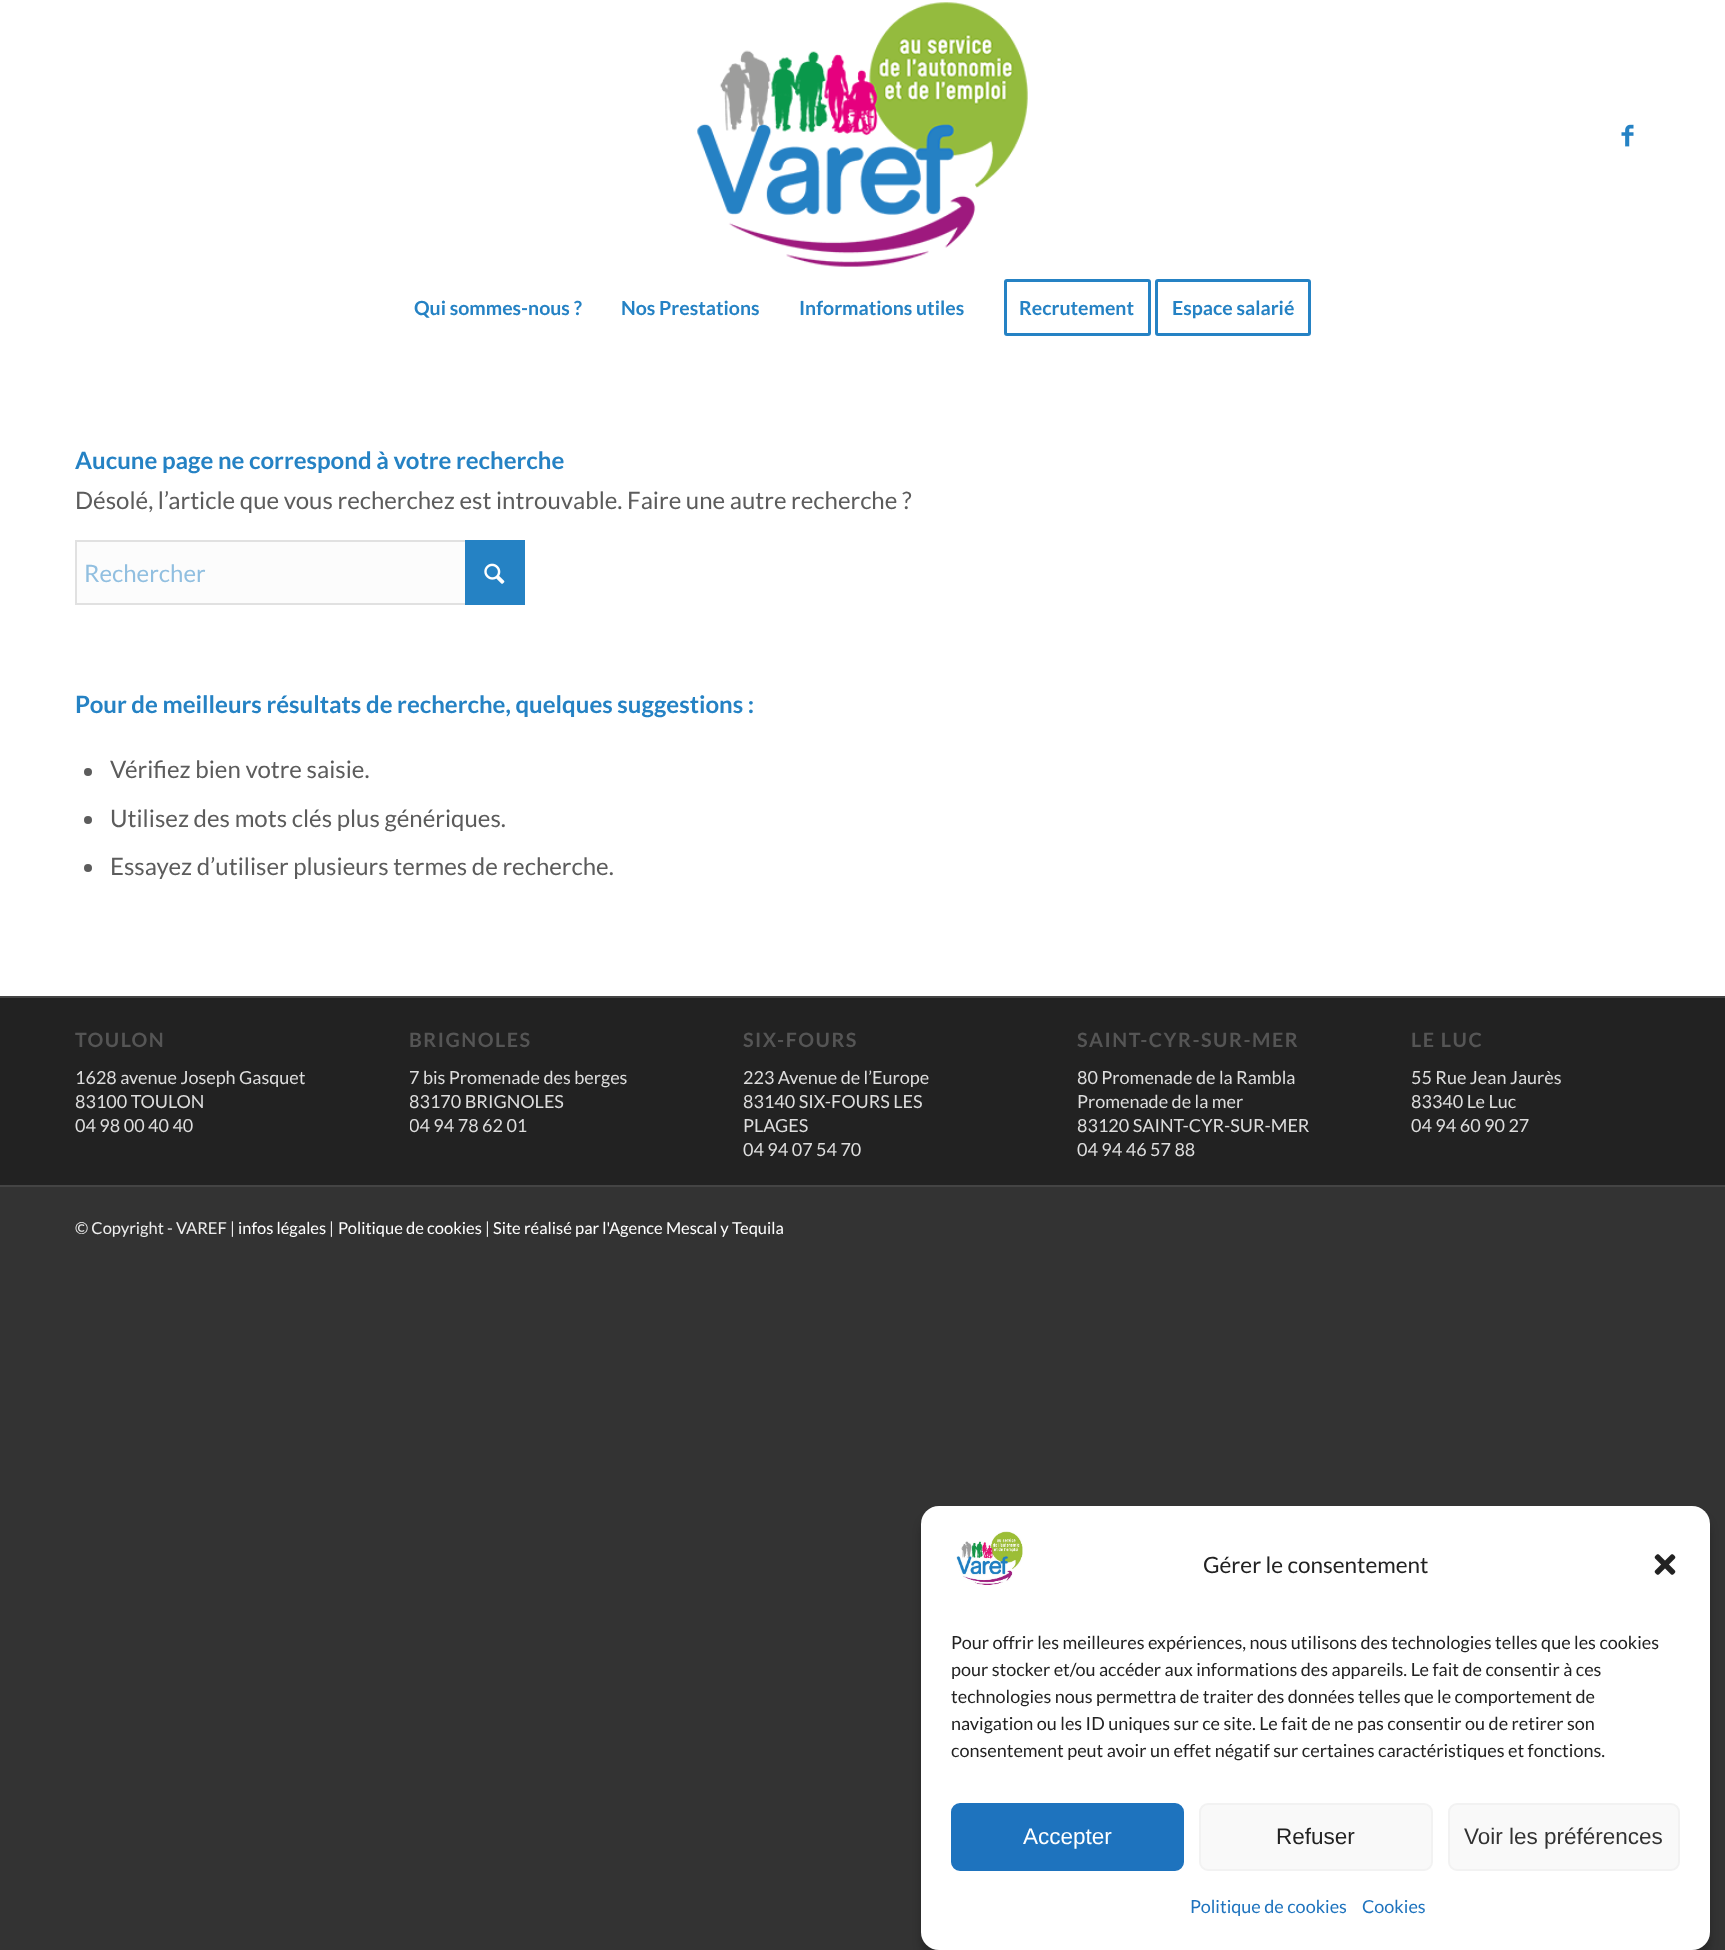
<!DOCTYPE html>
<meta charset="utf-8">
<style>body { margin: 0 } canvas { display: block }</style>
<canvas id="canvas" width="1725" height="1950"></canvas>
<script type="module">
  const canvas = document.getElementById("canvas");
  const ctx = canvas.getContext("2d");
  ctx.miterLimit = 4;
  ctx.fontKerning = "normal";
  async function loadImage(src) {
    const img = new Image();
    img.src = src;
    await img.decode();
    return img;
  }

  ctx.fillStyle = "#333333";
  ctx.fillRect(0, 0, 1725, 1950);
  ctx.fillStyle = "#ffffff";
  ctx.fillRect(0, 0, 1725, 996);
  ctx.drawImage(await loadImage("img1.png"), 697, 2, 331, 265);
  ctx.drawImage(await loadImage("img2.png"), 1621, 124, 13, 23);
  ctx.font = "bold 19.5px Lato";
  ctx.fillStyle = "#2582c4";
  ctx.fillText("Qui sommes-nous ?", 414, 315);
  ctx.fillText("Nos Prestations", 621, 315);
  ctx.fillText("Informations utiles", 799, 315);
  ctx.beginPath();
  ctx.roundRect(1005.5, 280.5, 144, 54, 1.5);
  ctx.strokeStyle = "#2582c4";
  ctx.lineWidth = 3;
  ctx.stroke();
  ctx.fillText("Recrutement", 1019, 315);
  ctx.beginPath();
  ctx.roundRect(1156.5, 280.5, 153, 54, 1.5);
  ctx.stroke();
  ctx.fillText("Espace salarié", 1172, 315);
  ctx.font = "bold 24px Lato";
  ctx.fillText("Aucune page ne correspond à votre recherche", 75, 469);
  ctx.font = "24px Lato";
  ctx.fillStyle = "#5c5c5c";
  ctx.fillText("Désolé, l’article que vous recherchez est introuvable. Faire une autre recherche ?", 75, 509);
  ctx.fillStyle = "#fcfcfc";
  ctx.fillRect(77, 542, 388, 61);
  ctx.strokeStyle = "#e1e1e1";
  ctx.lineWidth = 2;
  ctx.strokeRect(76, 541, 448, 63);
  ctx.fillStyle = "#2582c4";
  ctx.fillRect(465, 540, 60, 65);
  ctx.fillStyle = "#91bfe0";
  ctx.fillText("Rechercher", 84, 582);
  ctx.drawImage(await loadImage("img3.png"), 484, 563, 21, 21);
  ctx.font = "bold 24px Lato";
  ctx.fillStyle = "#2582c4";
  ctx.fillText("Pour de meilleurs résultats de recherche, quelques suggestions :", 75, 713);
  ctx.fillStyle = "#5c5c5c";
  ctx.beginPath();
  ctx.arc(88, 772, 4, 0, Math.PI * 2);
  ctx.fill();
  ctx.font = "24px Lato";
  ctx.fillText("Vérifiez bien votre saisie.", 110, 778);
  ctx.beginPath();
  ctx.arc(88, 820, 4, 0, Math.PI * 2);
  ctx.fill();
  ctx.fillText("Utilisez des mots clés plus génériques.", 110, 827);
  ctx.beginPath();
  ctx.arc(88, 868, 4, 0, Math.PI * 2);
  ctx.fill();
  ctx.fillText("Essayez d’utiliser plusieurs termes de recherche.", 110, 875);
  ctx.fillStyle = "#222222";
  ctx.fillRect(0, 998, 1725, 187);
  ctx.fillStyle = "#444444";
  ctx.fillRect(0, 996, 1725, 2);
  ctx.letterSpacing = "1.5px";
  ctx.font = "bold 19.75px Lato";
  ctx.fillStyle = "#555555";
  ctx.fillText("TOULON", 75, 1047);
  ctx.letterSpacing = "0px";
  ctx.font = "18px Lato";
  ctx.fillStyle = "#dddddd";
  ctx.fillText("1628 avenue Joseph Gasquet", 75, 1084);
  ctx.fillText("83100 TOULON", 75, 1108);
  ctx.fillText("04 98 00 40 40", 75, 1132);
  ctx.letterSpacing = "1.5px";
  ctx.font = "bold 19.75px Lato";
  ctx.fillStyle = "#555555";
  ctx.fillText("BRIGNOLES", 409, 1047);
  ctx.letterSpacing = "0px";
  ctx.font = "18px Lato";
  ctx.fillStyle = "#dddddd";
  ctx.fillText("7 bis Promenade des berges", 409, 1084);
  ctx.save();
  ctx.beginPath();
  ctx.rect(410, 1013, 238, 141);
  ctx.clip();
  ctx.fillText("83170 BRIGNOLES", 409, 1108);
  ctx.fillText("04 94 78 62 01", 409, 1132);
  ctx.restore();
  ctx.letterSpacing = "1.5px";
  ctx.font = "bold 19.75px Lato";
  ctx.fillStyle = "#555555";
  ctx.fillText("SIX-FOURS", 743, 1047);
  ctx.letterSpacing = "0px";
  ctx.font = "18px Lato";
  ctx.fillStyle = "#dddddd";
  ctx.fillText("223 Avenue de l’Europe", 743, 1084);
  ctx.fillText("83140 SIX-FOURS LES", 743, 1108);
  ctx.fillText("PLAGES", 743, 1132);
  ctx.fillText("04 94 07 54 70", 743, 1156);
  ctx.letterSpacing = "1.5px";
  ctx.font = "bold 19.75px Lato";
  ctx.fillStyle = "#555555";
  ctx.fillText("SAINT-CYR-SUR-MER", 1077, 1047);
  ctx.letterSpacing = "0px";
  ctx.font = "18px Lato";
  ctx.fillStyle = "#dddddd";
  ctx.fillText("80 Promenade de la Rambla", 1077, 1084);
  ctx.fillText("Promenade de la mer", 1077, 1108);
  ctx.fillText("83120 SAINT-CYR-SUR-MER", 1077, 1132);
  ctx.fillText("04 94 46 57 88", 1077, 1156);
  ctx.letterSpacing = "1.5px";
  ctx.font = "bold 19.75px Lato";
  ctx.fillStyle = "#555555";
  ctx.fillText("LE LUC", 1411, 1047);
  ctx.letterSpacing = "0px";
  ctx.font = "18px Lato";
  ctx.fillStyle = "#dddddd";
  ctx.fillText("55 Rue Jean Jaurès", 1411, 1084);
  ctx.fillText("83340 Le Luc", 1411, 1108);
  ctx.fillText("04 94 60 90 27", 1411, 1132);
  ctx.fillStyle = "#444444";
  ctx.fillRect(0, 1185, 1725, 2);
  ctx.font = "16.5px Lato";
  ctx.fillStyle = "#eeeeee";
  ctx.fillText("© Copyright - VAREF |", 75, 1234);
  ctx.fillStyle = "#ffffff";
  ctx.fillText("infos légales", 238, 1234);
  ctx.fillStyle = "#eeeeee";
  ctx.fillText("|", 329, 1234);
  ctx.fillStyle = "#ffffff";
  ctx.fillText("Politique de cookies", 338, 1234);
  ctx.fillStyle = "#eeeeee";
  ctx.fillText("|", 485, 1234);
  ctx.fillStyle = "#ffffff";
  ctx.fillText("Site réalisé par l'Agence Mescal y Tequila", 493, 1234);
  ctx.fillStyle = "rgba(0, 0, 0, 0.23)";
  ctx.filter = "blur(4.5px)";
  ctx.beginPath();
  ctx.roundRect(921, 1515, 789, 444, 18);
  ctx.fill();
  ctx.filter = "none";
  ctx.fillStyle = "#ffffff";
  ctx.beginPath();
  ctx.roundRect(921, 1506, 789, 444, 18);
  ctx.fill();
  ctx.drawImage(await loadImage("img4.png"), 956, 1531, 67, 54);
  ctx.font = "22.5px Lato";
  ctx.fillStyle = "#222222";
  ctx.fillText("Gérer le consentement", 1203, 1573);
  ctx.drawImage(await loadImage("img5.png"), 1654, 1554, 22, 21);
  ctx.font = "18px Lato";
  ctx.fillText("Pour offrir les meilleures expériences, nous utilisons des technologies telles que les cookies", 951, 1649);
  ctx.fillText("pour stocker et/ou accéder aux informations des appareils. Le fait de consentir à ces", 951, 1676);
  ctx.fillText("technologies nous permettra de traiter des données telles que le comportement de", 951, 1703);
  ctx.fillText("navigation ou les ID uniques sur ce site. Le fait de ne pas consentir ou de retirer son", 951, 1730);
  ctx.fillText("consentement peut avoir un effet négatif sur certaines caractéristiques et fonctions.", 951, 1757);
  ctx.fillStyle = "#1e73be";
  ctx.beginPath();
  ctx.roundRect(952, 1804, 231, 66, 8);
  ctx.fill();
  ctx.strokeStyle = "#1e73be";
  ctx.stroke();
  ctx.font = "22.5px Liberation Sans";
  ctx.fillStyle = "#ffffff";
  ctx.fillText("Accepter", 1023, 1844);
  ctx.fillStyle = "#f9f9f9";
  ctx.beginPath();
  ctx.roundRect(1200, 1804, 232, 66, 8);
  ctx.fill();
  ctx.strokeStyle = "#f2f2f2";
  ctx.stroke();
  ctx.fillStyle = "#222222";
  ctx.fillText("Refuser", 1276, 1844);
  ctx.fillStyle = "#f9f9f9";
  ctx.beginPath();
  ctx.roundRect(1449, 1804, 230, 66, 8);
  ctx.fill();
  ctx.stroke();
  ctx.fillStyle = "#333333";
  ctx.fillText("Voir les préférences", 1464, 1844);
  ctx.font = "18px Lato";
  ctx.fillStyle = "#1e73be";
  ctx.fillText("Politique de cookies", 1190, 1913);
  ctx.fillText("Cookies", 1362, 1913);
</script>
